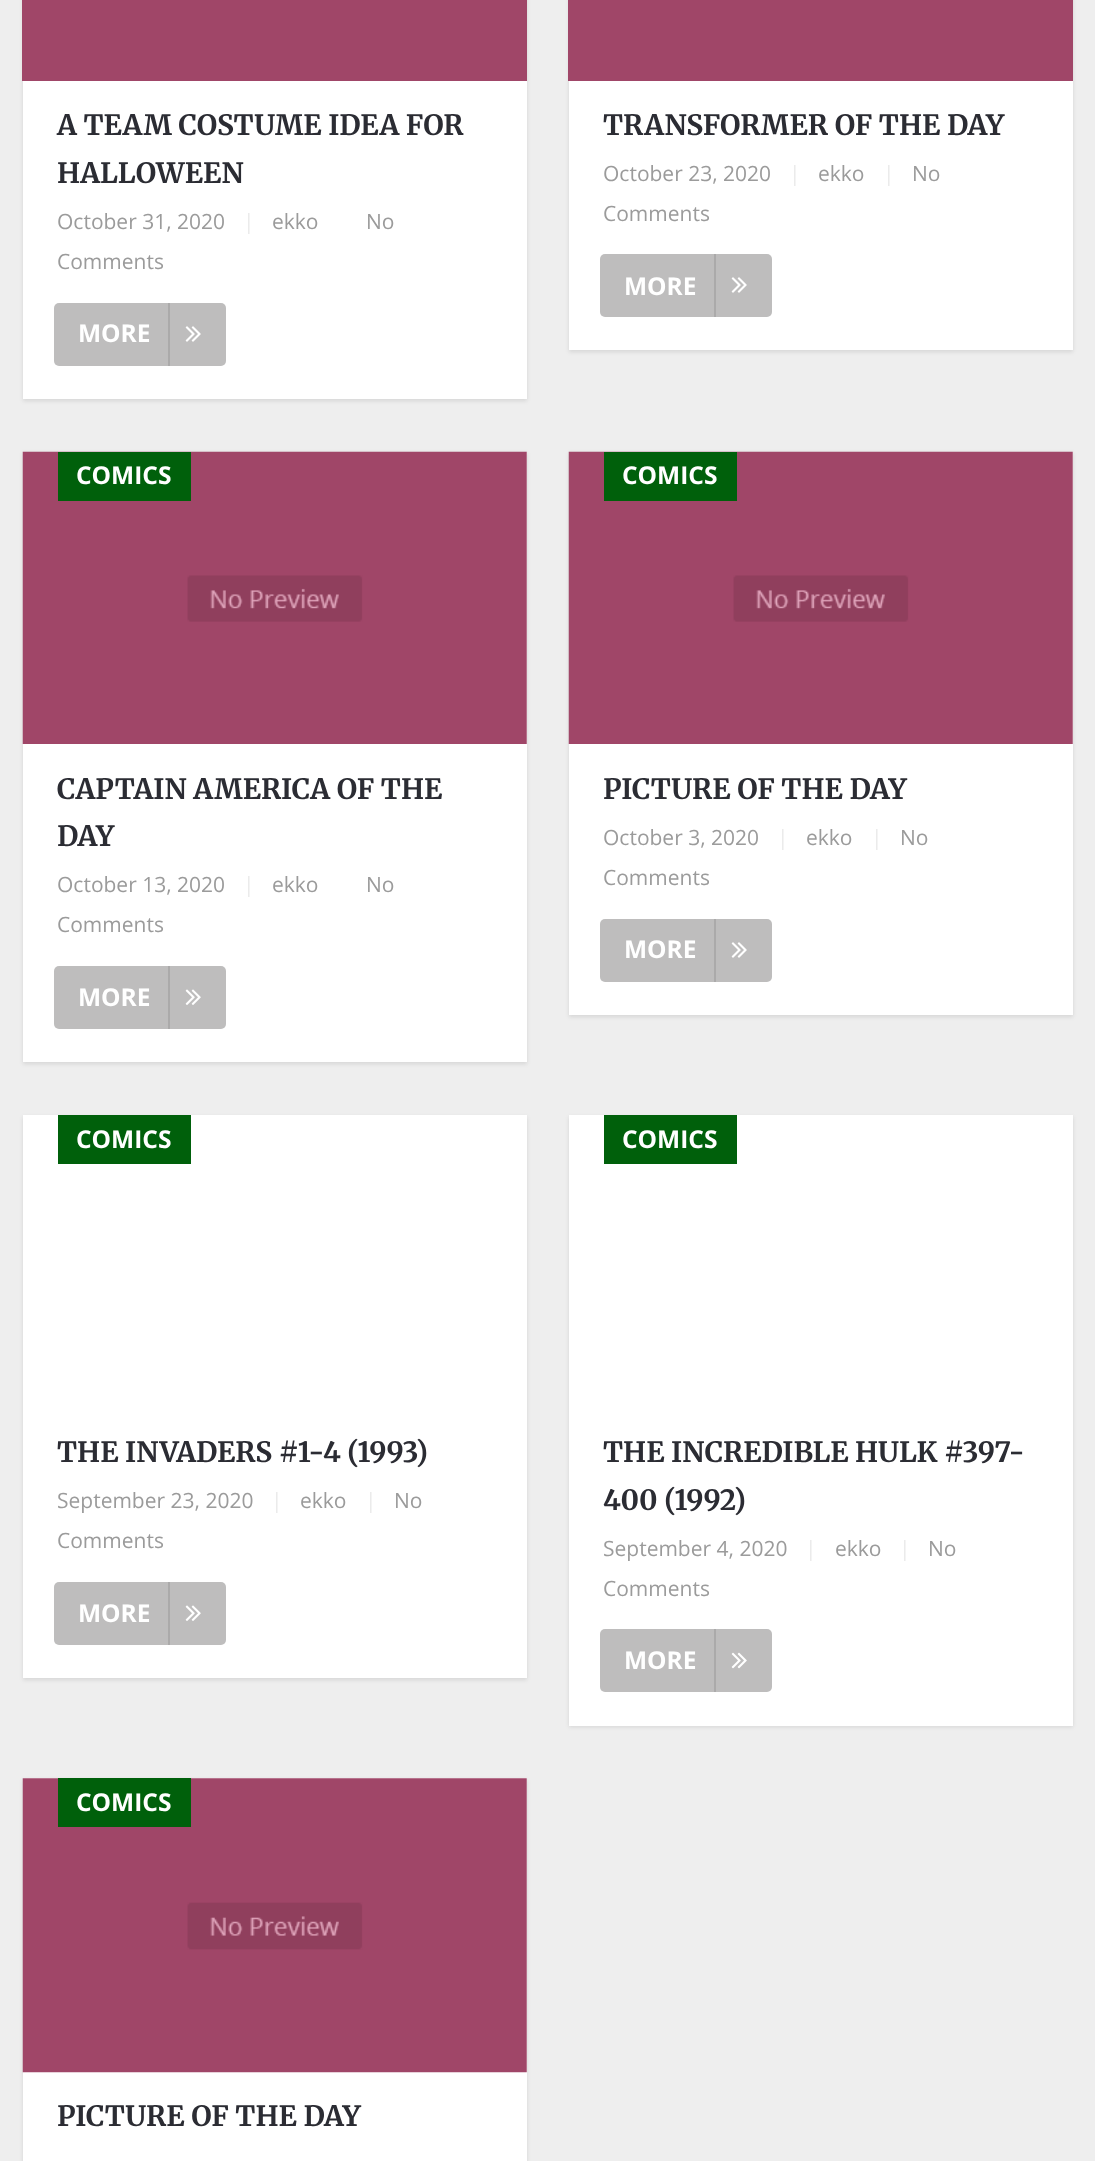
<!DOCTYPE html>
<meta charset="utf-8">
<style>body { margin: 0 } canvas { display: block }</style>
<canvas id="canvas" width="1095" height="2161"></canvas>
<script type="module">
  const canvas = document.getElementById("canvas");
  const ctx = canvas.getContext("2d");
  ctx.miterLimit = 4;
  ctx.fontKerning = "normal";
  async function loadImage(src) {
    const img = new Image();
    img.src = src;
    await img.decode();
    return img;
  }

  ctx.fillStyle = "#eeeeee";
  ctx.fillRect(0, 0, 1095, 2161);
  ctx.fillStyle = "rgba(0, 0, 0, 0.1)";
  ctx.filter = "blur(2px)";
  ctx.beginPath();
  ctx.rect(23, -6, 504, 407);
  ctx.fill();
  ctx.filter = "none";
  ctx.fillStyle = "#ffffff";
  ctx.fillRect(23, 81, 504, 318);
  ctx.fillStyle = "#a04668";
  ctx.fillRect(22, 0, 505, 81);
  ctx.font = "bold 28px Merriweather";
  ctx.fillStyle = "#2b2c33";
  ctx.fillText("A TEAM COSTUME IDEA FOR", 57, 135);
  ctx.fillText("HALLOWEEN", 57, 183);
  ctx.font = "21px Open Sans";
  ctx.fillStyle = "#9b9b9b";
  ctx.fillText("October 31, 2020", 57, 229);
  ctx.fillStyle = "#ebebeb";
  ctx.fillText("|", 243, 229);
  ctx.fillStyle = "#9b9b9b";
  ctx.fillText("ekko", 272, 229);
  ctx.fillText("No", 366, 229);
  ctx.fillText("Comments", 57, 269);
  ctx.fillStyle = "#bebdbd";
  ctx.beginPath();
  ctx.roundRect(54, 303, 172, 63, 5);
  ctx.fill();
  ctx.font = "bold 24.5px Open Sans";
  ctx.fillStyle = "#ffffff";
  ctx.fillText("MORE", 78, 342);
  ctx.fillStyle = "#abaaaa";
  ctx.fillRect(168, 303, 2, 63);
  ctx.drawImage(await loadImage("img1.png"), 185, 326, 16, 16);
  ctx.fillStyle = "rgba(0, 0, 0, 0.1)";
  ctx.filter = "blur(2px)";
  ctx.beginPath();
  ctx.rect(569, -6, 504, 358);
  ctx.fill();
  ctx.filter = "none";
  ctx.fillStyle = "#ffffff";
  ctx.fillRect(569, 81, 504, 269);
  ctx.fillStyle = "#a04668";
  ctx.fillRect(568, 0, 505, 81);
  ctx.font = "bold 28px Merriweather";
  ctx.fillStyle = "#2b2c33";
  ctx.fillText("TRANSFORMER OF THE DAY", 603, 135);
  ctx.font = "21px Open Sans";
  ctx.fillStyle = "#9b9b9b";
  ctx.fillText("October 23, 2020", 603, 181);
  ctx.fillStyle = "#ebebeb";
  ctx.fillText("|", 789, 181);
  ctx.fillStyle = "#9b9b9b";
  ctx.fillText("ekko", 818, 181);
  ctx.fillStyle = "#ebebeb";
  ctx.fillText("|", 883, 181);
  ctx.fillStyle = "#9b9b9b";
  ctx.fillText("No", 912, 181);
  ctx.fillText("Comments", 603, 221);
  ctx.fillStyle = "#bebdbd";
  ctx.beginPath();
  ctx.roundRect(600, 254, 172, 63, 5);
  ctx.fill();
  ctx.font = "bold 24.5px Open Sans";
  ctx.fillStyle = "#ffffff";
  ctx.fillText("MORE", 624, 295);
  ctx.fillStyle = "#abaaaa";
  ctx.fillRect(714, 254, 2, 63);
  ctx.drawImage(await loadImage("img1.png"), 731, 277, 16, 16);
  ctx.fillStyle = "rgba(0, 0, 0, 0.1)";
  ctx.filter = "blur(2px)";
  ctx.beginPath();
  ctx.rect(23, 453, 504, 611);
  ctx.fill();
  ctx.filter = "none";
  ctx.fillStyle = "#ffffff";
  ctx.fillRect(23, 452, 504, 610);
  ctx.drawImage(await loadImage("img2.png"), 22, 451, 505, 293);
  ctx.fillStyle = "#00600b";
  ctx.fillRect(58, 452, 133, 49);
  ctx.fillStyle = "#ffffff";
  ctx.fillText("COMICS", 76, 484);
  ctx.font = "bold 28px Merriweather";
  ctx.fillStyle = "#2b2c33";
  ctx.fillText("CAPTAIN AMERICA OF THE", 57, 799);
  ctx.fillText("DAY", 57, 846);
  ctx.font = "21px Open Sans";
  ctx.fillStyle = "#9b9b9b";
  ctx.fillText("October 13, 2020", 57, 892);
  ctx.fillStyle = "#ebebeb";
  ctx.fillText("|", 243, 892);
  ctx.fillStyle = "#9b9b9b";
  ctx.fillText("ekko", 272, 892);
  ctx.fillText("No", 366, 892);
  ctx.fillText("Comments", 57, 932);
  ctx.fillStyle = "#bebdbd";
  ctx.beginPath();
  ctx.roundRect(54, 966, 172, 63, 5);
  ctx.fill();
  ctx.font = "bold 24.5px Open Sans";
  ctx.fillStyle = "#ffffff";
  ctx.fillText("MORE", 78, 1006);
  ctx.fillStyle = "#abaaaa";
  ctx.fillRect(168, 966, 2, 63);
  ctx.drawImage(await loadImage("img3.png"), 185, 989, 16, 16);
  ctx.fillStyle = "rgba(0, 0, 0, 0.1)";
  ctx.filter = "blur(2px)";
  ctx.beginPath();
  ctx.rect(569, 453, 504, 564);
  ctx.fill();
  ctx.filter = "none";
  ctx.fillStyle = "#ffffff";
  ctx.fillRect(569, 452, 504, 563);
  ctx.drawImage(await loadImage("img4.png"), 568, 451, 505, 293);
  ctx.fillStyle = "#00600b";
  ctx.fillRect(604, 452, 133, 49);
  ctx.fillStyle = "#ffffff";
  ctx.fillText("COMICS", 622, 484);
  ctx.font = "bold 28px Merriweather";
  ctx.fillStyle = "#2b2c33";
  ctx.fillText("PICTURE OF THE DAY", 603, 799);
  ctx.font = "21px Open Sans";
  ctx.fillStyle = "#9b9b9b";
  ctx.fillText("October 3, 2020", 603, 845);
  ctx.fillStyle = "#ebebeb";
  ctx.fillText("|", 777, 845);
  ctx.fillStyle = "#9b9b9b";
  ctx.fillText("ekko", 806, 845);
  ctx.fillStyle = "#ebebeb";
  ctx.fillText("|", 871, 845);
  ctx.fillStyle = "#9b9b9b";
  ctx.fillText("No", 900, 845);
  ctx.fillText("Comments", 603, 885);
  ctx.fillStyle = "#bebdbd";
  ctx.beginPath();
  ctx.roundRect(600, 919, 172, 63, 5);
  ctx.fill();
  ctx.font = "bold 24.5px Open Sans";
  ctx.fillStyle = "#ffffff";
  ctx.fillText("MORE", 624, 958);
  ctx.fillStyle = "#abaaaa";
  ctx.fillRect(714, 919, 2, 63);
  ctx.drawImage(await loadImage("img1.png"), 731, 942, 16, 16);
  ctx.fillStyle = "rgba(0, 0, 0, 0.1)";
  ctx.filter = "blur(2px)";
  ctx.beginPath();
  ctx.rect(23, 1117, 504, 563);
  ctx.fill();
  ctx.filter = "none";
  ctx.fillStyle = "#ffffff";
  ctx.fillRect(23, 1115, 504, 563);
  ctx.fillStyle = "#00600b";
  ctx.fillRect(58, 1115, 133, 49);
  ctx.fillStyle = "#ffffff";
  ctx.fillText("COMICS", 76, 1148);
  ctx.font = "bold 28px Merriweather";
  ctx.fillStyle = "#2b2c33";
  ctx.fillText("THE INVADERS #1-4 (1993)", 57, 1462);
  ctx.font = "21px Open Sans";
  ctx.fillStyle = "#9b9b9b";
  ctx.fillText("September 23, 2020", 57, 1508);
  ctx.fillStyle = "#ebebeb";
  ctx.fillText("|", 271, 1508);
  ctx.fillStyle = "#9b9b9b";
  ctx.fillText("ekko", 300, 1508);
  ctx.fillStyle = "#ebebeb";
  ctx.fillText("|", 365, 1508);
  ctx.fillStyle = "#9b9b9b";
  ctx.fillText("No", 394, 1508);
  ctx.fillText("Comments", 57, 1548);
  ctx.fillStyle = "#bebdbd";
  ctx.beginPath();
  ctx.roundRect(54, 1582, 172, 63, 5);
  ctx.fill();
  ctx.font = "bold 24.5px Open Sans";
  ctx.fillStyle = "#ffffff";
  ctx.fillText("MORE", 78, 1622);
  ctx.fillStyle = "#abaaaa";
  ctx.fillRect(168, 1582, 2, 63);
  ctx.drawImage(await loadImage("img3.png"), 185, 1605, 16, 16);
  ctx.fillStyle = "rgba(0, 0, 0, 0.1)";
  ctx.filter = "blur(2px)";
  ctx.beginPath();
  ctx.rect(569, 1117, 504, 610);
  ctx.fill();
  ctx.filter = "none";
  ctx.fillStyle = "#ffffff";
  ctx.fillRect(569, 1115, 504, 611);
  ctx.fillStyle = "#00600b";
  ctx.fillRect(604, 1115, 133, 49);
  ctx.fillStyle = "#ffffff";
  ctx.fillText("COMICS", 622, 1148);
  ctx.font = "bold 28px Merriweather";
  ctx.fillStyle = "#2b2c33";
  ctx.fillText("THE INCREDIBLE HULK #397-", 603, 1462);
  ctx.fillText("400 (1992)", 603, 1510);
  ctx.font = "21px Open Sans";
  ctx.fillStyle = "#9b9b9b";
  ctx.fillText("September 4, 2020", 603, 1556);
  ctx.fillStyle = "#ebebeb";
  ctx.fillText("|", 805, 1556);
  ctx.fillStyle = "#9b9b9b";
  ctx.fillText("ekko", 835, 1556);
  ctx.fillStyle = "#ebebeb";
  ctx.fillText("|", 899, 1556);
  ctx.fillStyle = "#9b9b9b";
  ctx.fillText("No", 928, 1556);
  ctx.fillText("Comments", 603, 1596);
  ctx.fillStyle = "#bebdbd";
  ctx.beginPath();
  ctx.roundRect(600, 1629, 172, 63, 5);
  ctx.fill();
  ctx.font = "bold 24.5px Open Sans";
  ctx.fillStyle = "#ffffff";
  ctx.fillText("MORE", 624, 1669);
  ctx.fillStyle = "#abaaaa";
  ctx.fillRect(714, 1629, 2, 63);
  ctx.drawImage(await loadImage("img5.png"), 731, 1652, 16, 17);
  ctx.fillStyle = "rgba(0, 0, 0, 0.1)";
  ctx.filter = "blur(2px)";
  ctx.beginPath();
  ctx.rect(23, 1780, 504, 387);
  ctx.fill();
  ctx.filter = "none";
  ctx.fillStyle = "#ffffff";
  ctx.fillRect(23, 1778, 504, 383);
  ctx.drawImage(await loadImage("img6.png"), 22, 1778, 505, 295);
  ctx.fillStyle = "#00600b";
  ctx.fillRect(58, 1778, 133, 49);
  ctx.fillStyle = "#ffffff";
  ctx.fillText("COMICS", 76, 1811);
  ctx.font = "bold 28px Merriweather";
  ctx.fillStyle = "#2b2c33";
  ctx.fillText("PICTURE OF THE DAY", 57, 2126);
</script>
